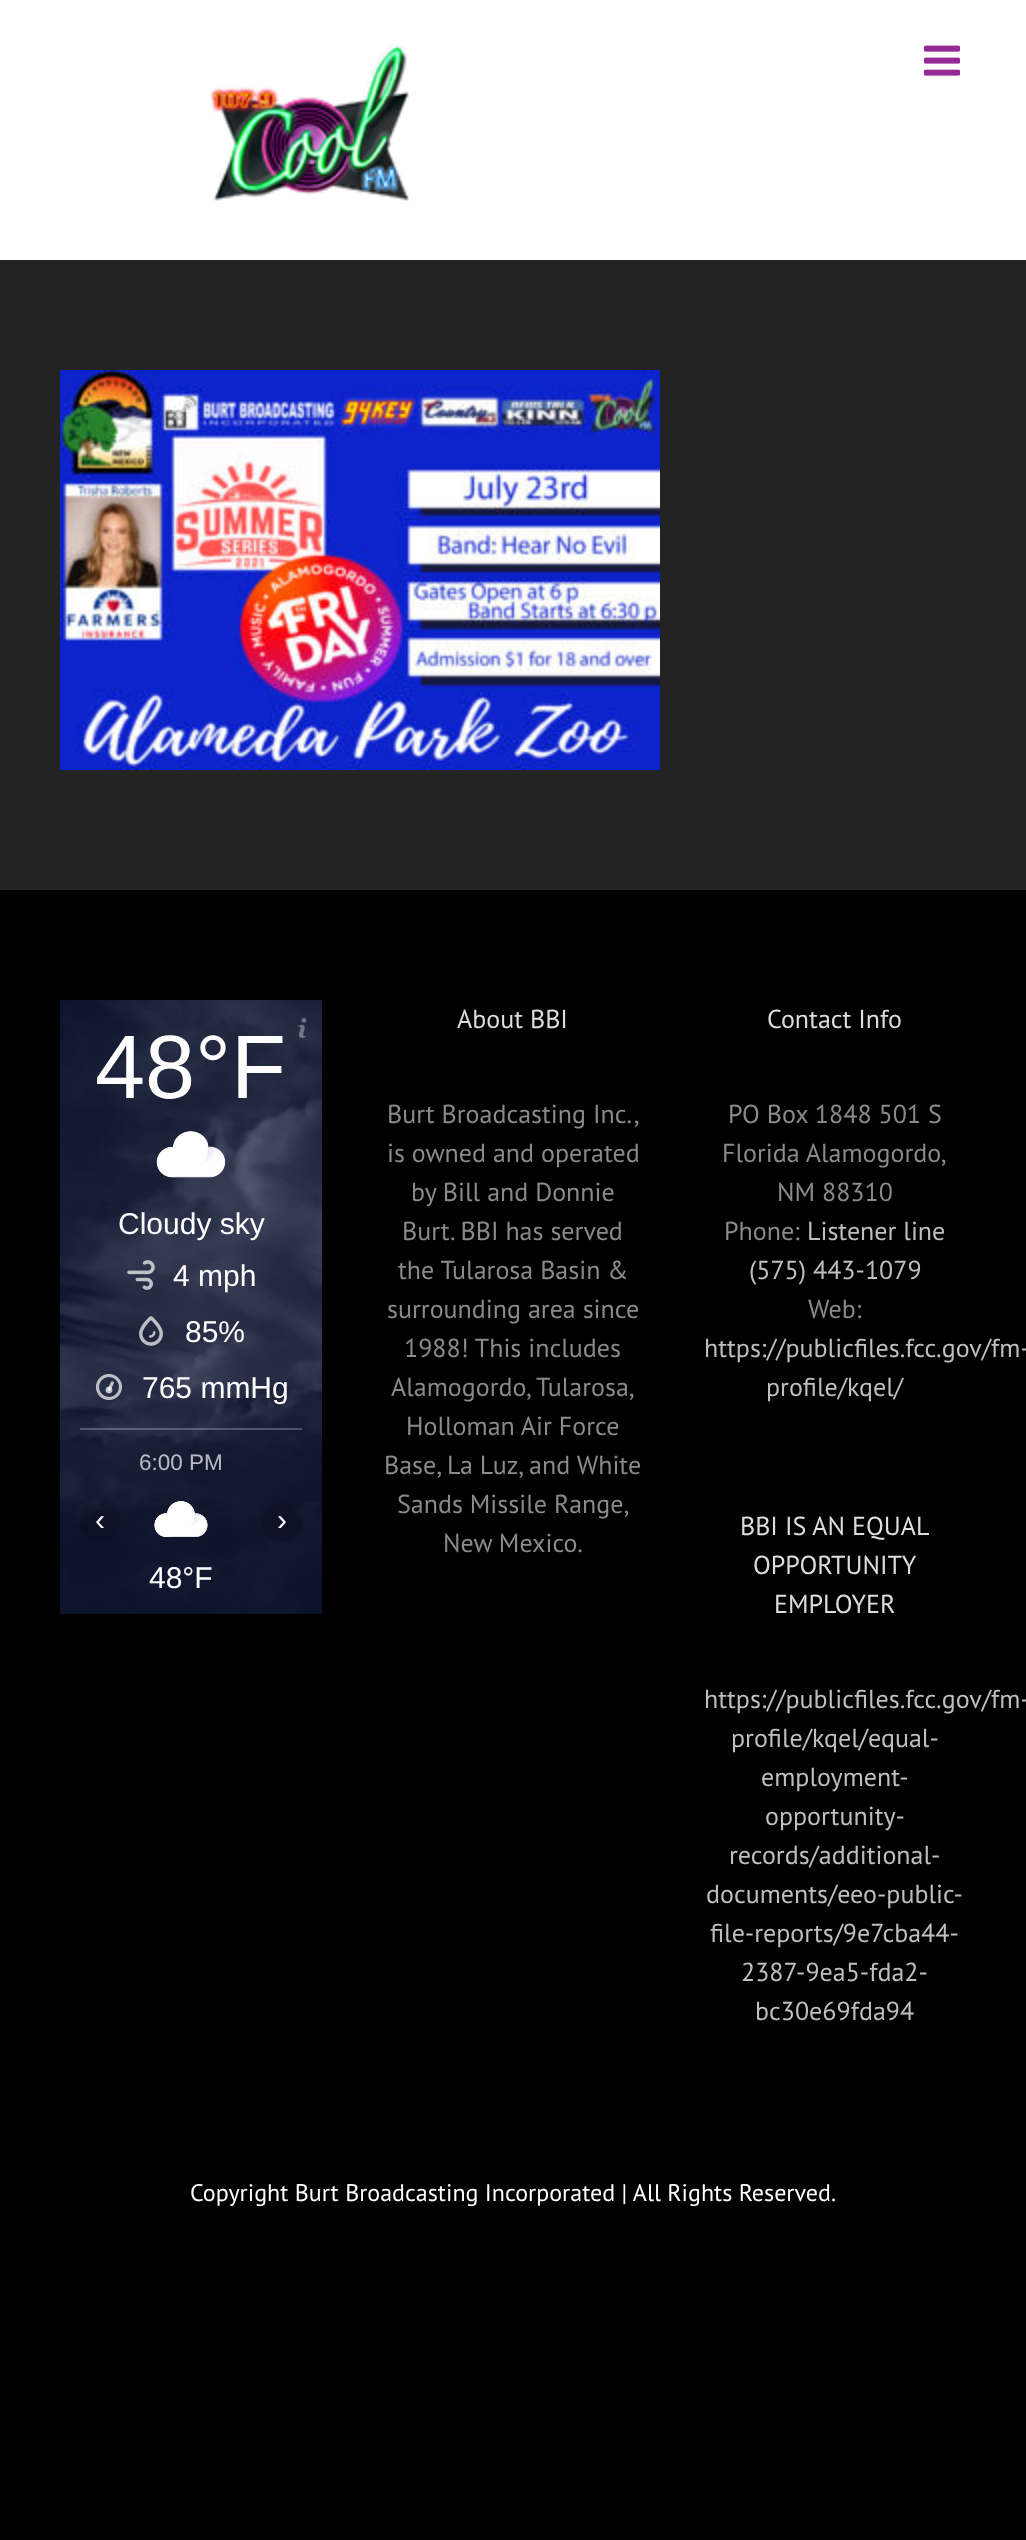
<!DOCTYPE html>
<meta charset="utf-8">
<style>body { margin: 0 } canvas { display: block }</style>
<canvas id="canvas" width="1026" height="2540"></canvas>
<script type="module">
  const canvas = document.getElementById("canvas");
  const ctx = canvas.getContext("2d");
  ctx.miterLimit = 4;
  ctx.fontKerning = "normal";
  async function loadImage(src) {
    const img = new Image();
    img.src = src;
    await img.decode();
    return img;
  }

  ctx.fillStyle = "#000000";
  ctx.fillRect(0, 0, 1026, 2540);
  ctx.fillStyle = "#232323";
  ctx.fillRect(0, 260, 1026, 630);
  ctx.fillStyle = "#ffffff";
  ctx.fillRect(0, 0, 1026, 260);
  ctx.drawImage(await loadImage("img1.png"), 209, 45, 200, 156);
  ctx.drawImage(await loadImage("img2.png"), 924, 45, 36, 31);
  ctx.drawImage(await loadImage("img3.png"), 60, 370, 600, 400);
  ctx.drawImage(await loadImage("img4.png"), 60, 1000, 262, 614);
  ctx.drawImage(await loadImage("img5.png"), 297, 1018, 10, 20);
  ctx.font = "90px Liberation Sans";
  ctx.fillText("48°F", 95, 1098);
  ctx.drawImage(await loadImage("img6.png"), 156, 1131, 70, 47);
  ctx.font = "30px Liberation Sans";
  ctx.fillText("Cloudy sky", 118, 1234);
  ctx.drawImage(await loadImage("img7.png"), 127, 1260, 28, 30);
  ctx.fillText("4 mph", 173, 1286);
  ctx.drawImage(await loadImage("img8.png"), 139, 1316, 24, 30);
  ctx.fillText("85%", 185, 1342);
  ctx.drawImage(await loadImage("img9.png"), 95, 1373, 27, 27);
  ctx.fillText("765 mmHg", 142, 1398);
  ctx.fillStyle = "rgba(255, 255, 255, 0.24)";
  ctx.fillRect(80, 1428, 222, 2);
  ctx.fillStyle = "rgba(0, 0, 0, 0.1)";
  ctx.beginPath();
  ctx.arc(100, 1522, 20, 0, Math.PI * 2);
  ctx.fill();
  ctx.fillStyle = "#ffffff";
  ctx.fillText("‹", 95, 1530);
  ctx.font = "22.5px Liberation Sans";
  ctx.fillStyle = "#b9bbc2";
  ctx.fillText("6:00 PM", 139, 1470);
  ctx.drawImage(await loadImage("img10.png"), 154, 1501, 54, 36);
  ctx.font = "30px Liberation Sans";
  ctx.fillStyle = "#ffffff";
  ctx.fillText("48°F", 149, 1588);
  ctx.fillStyle = "rgba(0, 0, 0, 0.1)";
  ctx.beginPath();
  ctx.arc(282, 1522, 20, 0, Math.PI * 2);
  ctx.fill();
  ctx.fillStyle = "#ffffff";
  ctx.fillText("›", 277, 1530);
  ctx.font = "26px PT Sans";
  ctx.fillStyle = "#dddddd";
  ctx.fillText("About BBI", 457, 1028);
  ctx.fillStyle = "#8c8989";
  ctx.fillText("Burt Broadcasting Inc.,", 387, 1123);
  ctx.fillText("is owned and operated", 387, 1162);
  ctx.fillText("by Bill and Donnie", 411, 1201);
  ctx.fillText("Burt. BBI has served", 402, 1240);
  ctx.fillText("the Tularosa Basin &", 398, 1279);
  ctx.fillText("surrounding area since", 387, 1318);
  ctx.fillText("1988! This includes", 404, 1357);
  ctx.fillText("Alamogordo, Tularosa,", 391, 1396);
  ctx.fillText("Holloman Air Force", 406, 1435);
  ctx.fillText("Base, La Luz, and White", 384, 1474);
  ctx.fillText("Sands Missile Range,", 397, 1513);
  ctx.fillText("New Mexico.", 443, 1552);
  ctx.fillStyle = "#dddddd";
  ctx.fillText("Contact Info", 767, 1028);
  ctx.fillStyle = "#8c8989";
  ctx.fillText("PO Box 1848 501 S", 728, 1123);
  ctx.fillText("Florida Alamogordo,", 722, 1162);
  ctx.fillText("NM 88310", 777, 1201);
  ctx.fillText("Phone:", 724, 1240);
  ctx.fillStyle = "#bfbfbf";
  ctx.fillText("Listener line", 807, 1240);
  ctx.fillText("(575) 443-1079", 749, 1279);
  ctx.fillStyle = "#8c8989";
  ctx.fillText("Web:", 808, 1318);
  ctx.fillStyle = "#bfbfbf";
  ctx.fillText("https://publicfiles.fcc.gov/fm-", 704, 1357);
  ctx.fillText("profile/kqel/", 766, 1396);
  ctx.fillStyle = "#dddddd";
  ctx.fillText("BBI IS AN EQUAL", 740, 1535);
  ctx.fillText("OPPORTUNITY", 753, 1574);
  ctx.fillText("EMPLOYER", 774, 1613);
  ctx.fillStyle = "#bfbfbf";
  ctx.fillText("https://publicfiles.fcc.gov/fm-", 704, 1708);
  ctx.fillText("profile/kqel/equal-", 731, 1747);
  ctx.fillText("employment-", 761, 1786);
  ctx.fillText("opportunity-", 765, 1825);
  ctx.fillText("records/additional-", 729, 1864);
  ctx.fillText("documents/eeo-public-", 706, 1903);
  ctx.fillText("file-reports/9e7cba44-", 710, 1942);
  ctx.fillText("2387-9ea5-fda2-", 741, 1981);
  ctx.fillText("bc30e69fda94", 755, 2020);
  ctx.font = "24px PT Sans";
  ctx.fillStyle = "#ffffff";
  ctx.fillText("Copyright Burt Broadcasting Incorporated | All Rights Reserved.", 190, 2201);
</script>
